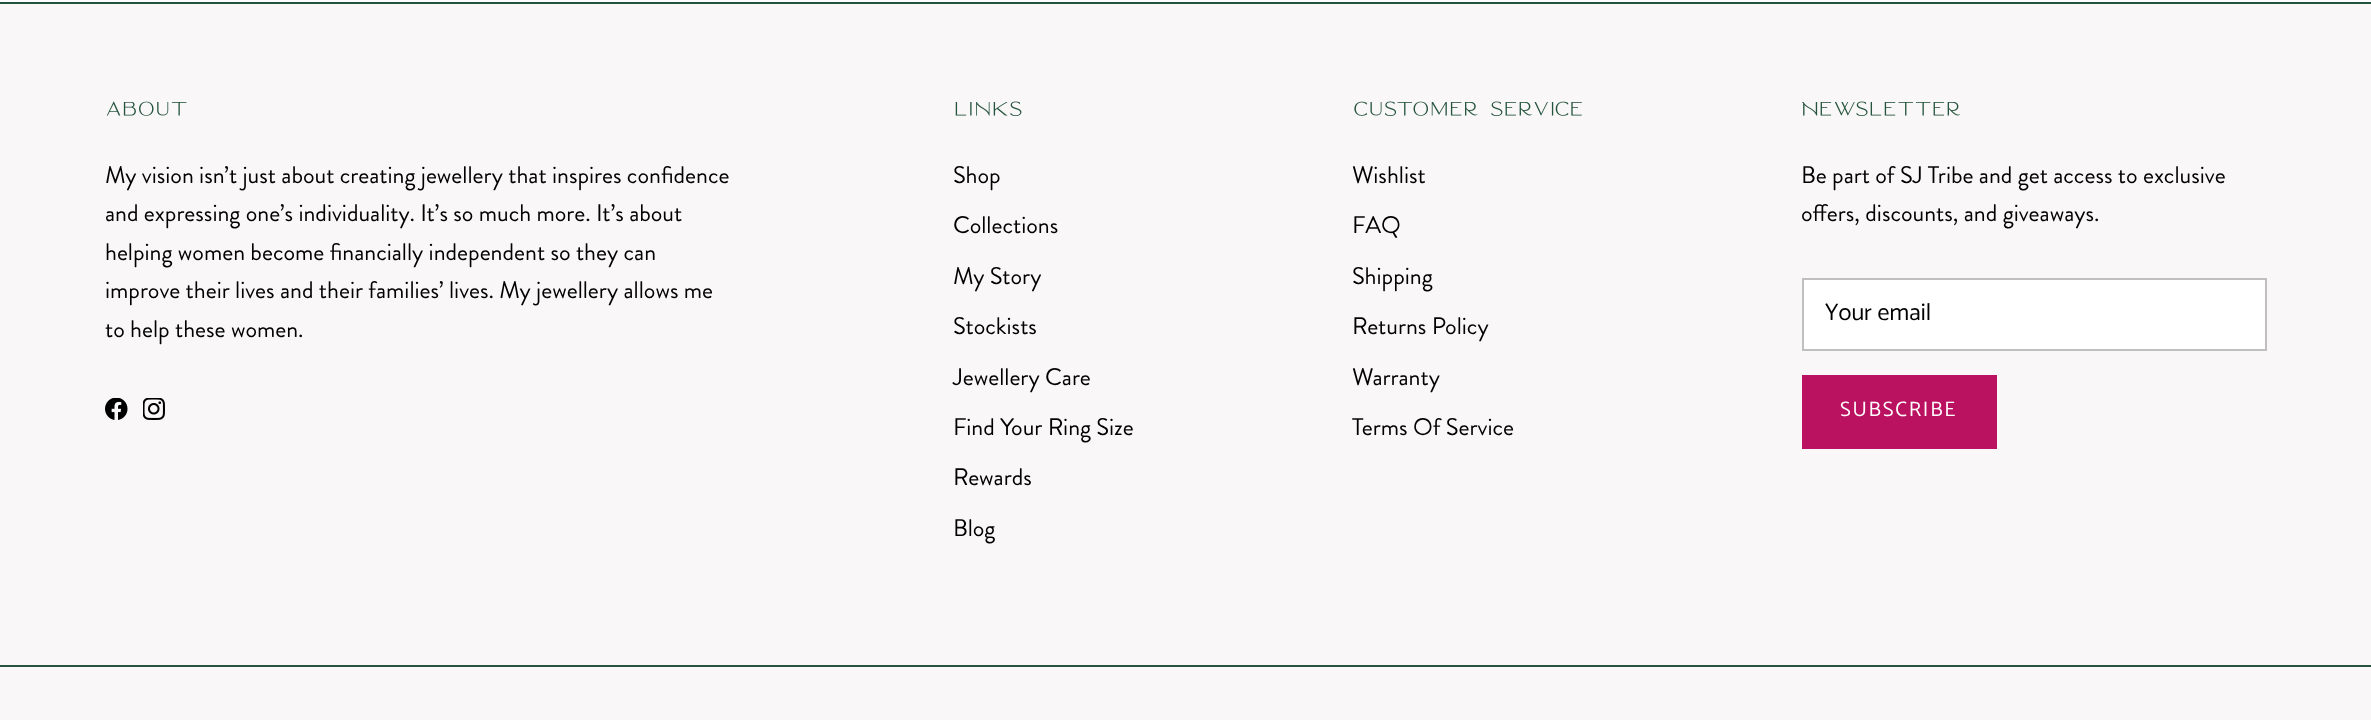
<!DOCTYPE html>
<meta charset="utf-8">
<style>body { margin: 0 } canvas { display: block }</style>
<canvas id="canvas" width="2371" height="720"></canvas>
<script type="module">
  const canvas = document.getElementById("canvas");
  const ctx = canvas.getContext("2d");
  ctx.miterLimit = 4;
  ctx.fontKerning = "normal";
  async function loadImage(src) {
    const img = new Image();
    img.src = src;
    await img.decode();
    return img;
  }

  ctx.fillStyle = "#ffffff";
  ctx.fillRect(0, 0, 2371, 720);
  ctx.fillStyle = "#f9f7f7";
  ctx.fillRect(0, 4, 2371, 716);
  ctx.fillStyle = "#24543d";
  ctx.fillRect(0, 2, 2371, 2);
  ctx.drawImage(await loadImage("img1.png"), 106, 101, 81, 15);
  ctx.font = "24px Brandon Grotesque";
  ctx.fillStyle = "#000000";
  ctx.fillText("My vision isn’t just about creating jewellery that inspires confidence", 105, 183);
  ctx.fillText("and expressing one’s individuality. It’s so much more. It’s about", 105, 221);
  ctx.fillText("helping women become financially independent so they can", 105, 260);
  ctx.fillText("improve their lives and their families’ lives. My jewellery allows me", 105, 298);
  ctx.fillText("to help these women.", 105, 337);
  ctx.drawImage(await loadImage("img2.png"), 105, 398, 23, 22);
  ctx.drawImage(await loadImage("img3.png"), 143, 398, 22, 22);
  ctx.drawImage(await loadImage("img4.png"), 955, 101, 67, 15);
  ctx.fillText("Shop", 953, 183);
  ctx.fillText("Collections", 953, 233);
  ctx.fillText("My Story", 953, 284);
  ctx.fillText("Stockists", 953, 334);
  ctx.fillText("Jewellery Care", 953, 385);
  ctx.fillText("Find Your Ring Size", 953, 435);
  ctx.fillText("Rewards", 953, 485);
  ctx.fillText("Blog", 953, 536);
  ctx.drawImage(await loadImage("img5.png"), 1354, 101, 228, 15);
  ctx.fillText("Wishlist", 1352, 183);
  ctx.fillText("FAQ", 1352, 233);
  ctx.fillText("Shipping", 1352, 284);
  ctx.fillText("Returns Policy", 1352, 334);
  ctx.fillText("Warranty", 1352, 385);
  ctx.fillText("Terms Of Service", 1352, 435);
  ctx.drawImage(await loadImage("img6.png"), 1801, 101, 160, 15);
  ctx.fillText("Be part of SJ Tribe and get access to exclusive", 1801, 183);
  ctx.fillText("offers, discounts, and giveaways.", 1801, 221);
  ctx.fillStyle = "#ffffff";
  ctx.beginPath();
  ctx.rect(1803, 279, 463, 71);
  ctx.fill();
  ctx.strokeStyle = "#bfbfbf";
  ctx.lineWidth = 2;
  ctx.stroke();
  ctx.font = "24px Catamaran";
  ctx.fillStyle = "#000000";
  ctx.fillText("Your email", 1825, 320);
  ctx.fillStyle = "#ba1261";
  ctx.fillRect(1802, 375, 195, 74);
  ctx.letterSpacing = "1.75px";
  ctx.font = "21px Catamaran";
  ctx.fillStyle = "#ffffff";
  ctx.fillText("SUBSCRIBE", 1840, 416);
  ctx.fillStyle = "#24543d";
  ctx.fillRect(0, 665, 2371, 2);
</script>
